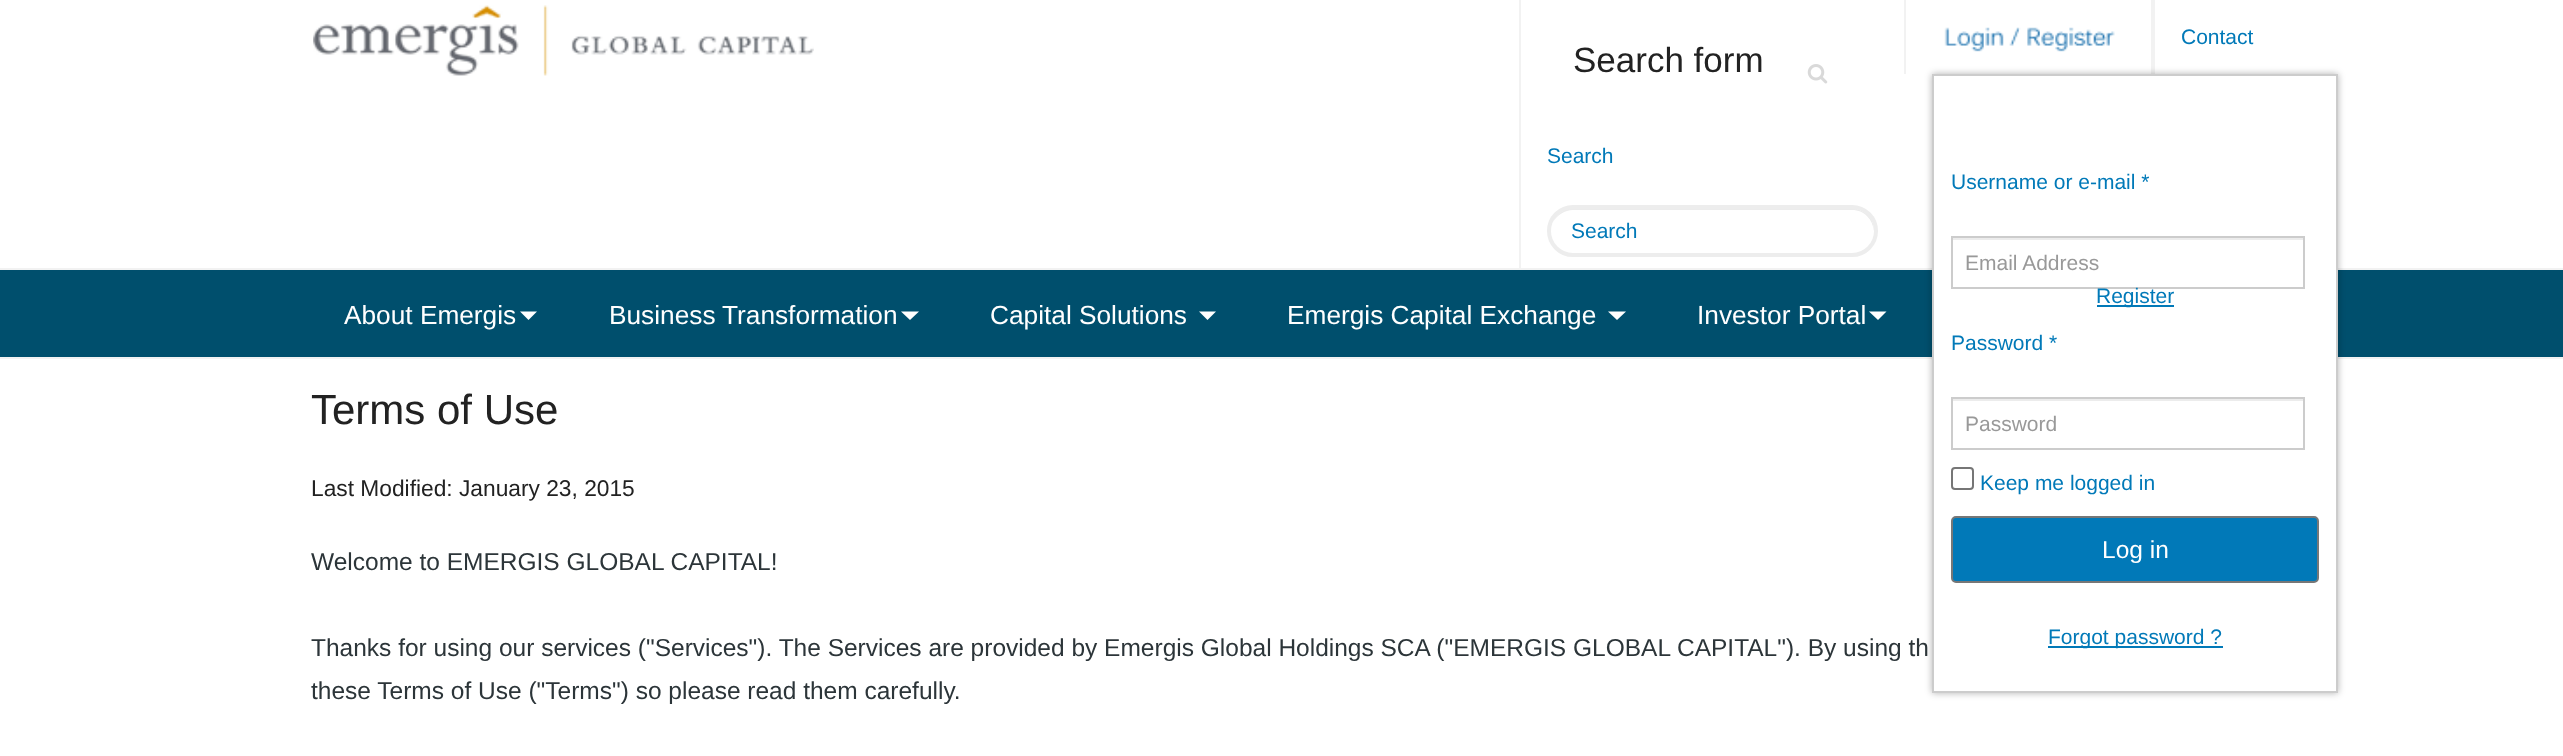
<!DOCTYPE html>
<meta charset="utf-8">
<style>body { margin: 0 } canvas { display: block }</style>
<canvas id="canvas" width="2563" height="756"></canvas>
<script type="module">
  const canvas = document.getElementById("canvas");
  const ctx = canvas.getContext("2d");
  ctx.miterLimit = 4;
  ctx.fontKerning = "normal";
  async function loadImage(src) {
    const img = new Image();
    img.src = src;
    await img.decode();
    return img;
  }

  ctx.fillStyle = "#ffffff";
  ctx.fillRect(0, 0, 2563, 756);
  ctx.fillStyle = "#004f6d";
  ctx.fillRect(0, 270, 2563, 87);
  ctx.fillStyle = "#f2f2f2";
  ctx.fillRect(0, 357, 2563, 2);
  ctx.font = "26.25px Liberation Sans";
  ctx.fillStyle = "#ffffff";
  ctx.fillText("About Emergis", 344, 324);
  ctx.beginPath();
  ctx.moveTo(520, 311.5);
  ctx.lineTo(537, 311.5);
  ctx.lineTo(528.5, 320);
  ctx.closePath();
  ctx.fill();
  ctx.fillText("Business", 609, 324);
  ctx.fillText("Transformation", 722, 324);
  ctx.beginPath();
  ctx.moveTo(901, 311.5);
  ctx.lineTo(919, 311.5);
  ctx.lineTo(910, 320);
  ctx.closePath();
  ctx.fill();
  ctx.fillText("Capital Solutions", 990, 324);
  ctx.beginPath();
  ctx.moveTo(1199, 311.5);
  ctx.lineTo(1216, 311.5);
  ctx.lineTo(1207.5, 320);
  ctx.closePath();
  ctx.fill();
  ctx.fillText("Emergis Capital Exchange", 1287, 324);
  ctx.beginPath();
  ctx.moveTo(1608, 311.5);
  ctx.lineTo(1626, 311.5);
  ctx.lineTo(1617, 320);
  ctx.closePath();
  ctx.fill();
  ctx.fillText("Investor Portal", 1697, 324);
  ctx.beginPath();
  ctx.moveTo(1869, 311.5);
  ctx.lineTo(1886.5, 311.5);
  ctx.lineTo(1878, 320);
  ctx.closePath();
  ctx.fill();
  ctx.fillStyle = "#f2f2f2";
  ctx.fillRect(0, 268, 2563, 2);
  ctx.drawImage(await loadImage("img1.png"), 313, 5, 501, 71);
  ctx.fillRect(2151, 0, 4, 74);
  ctx.font = "21px Liberation Sans";
  ctx.fillStyle = "#0179b8";
  ctx.fillText("Contact", 2181, 44);
  ctx.fillStyle = "#f2f2f2";
  ctx.fillRect(1519, 0, 2, 268);
  ctx.font = "35px Liberation Sans";
  ctx.fillStyle = "#222222";
  ctx.fillText("Search form", 1573, 72);
  ctx.font = "21px Liberation Sans";
  ctx.fillStyle = "#0179b8";
  ctx.fillText("Search", 1547, 163);
  ctx.fillStyle = "#ececec";
  ctx.beginPath();
  ctx.moveTo(1573, 210);
  ctx.lineTo(1852, 210);
  ctx.bezierCurveTo(1864, 210, 1873, 219, 1874, 232);
  ctx.bezierCurveTo(1875, 197, 1821, 208, 1805, 208);
  ctx.lineTo(1574, 208);
  ctx.bezierCurveTo(1565, 208, 1556, 214, 1553, 222);
  ctx.bezierCurveTo(1557, 215, 1565, 210, 1573, 210);
  ctx.closePath();
  ctx.fill();
  ctx.beginPath();
  ctx.roundRect(1549, 207, 327, 48, 24);
  ctx.strokeStyle = "#ededed";
  ctx.lineWidth = 4;
  ctx.stroke();
  ctx.fillStyle = "#0179b8";
  ctx.fillText("Search", 1571, 238);
  ctx.drawImage(await loadImage("img2.png"), 1807, 64, 21, 20);
  ctx.fillStyle = "#f2f2f2";
  ctx.fillRect(1904, 0, 2, 74);
  ctx.drawImage(await loadImage("img3.png"), 1944, 27, 171, 25);
  ctx.fillStyle = "rgba(0, 0, 0, 0.3)";
  ctx.filter = "blur(3.5px)";
  ctx.beginPath();
  ctx.rect(1932, 74, 406, 619);
  ctx.fill();
  ctx.filter = "none";
  ctx.fillStyle = "#ffffff";
  ctx.beginPath();
  ctx.rect(1933, 75, 404, 617);
  ctx.fill();
  ctx.strokeStyle = "#cccccc";
  ctx.lineWidth = 2;
  ctx.stroke();
  ctx.fillStyle = "#0179b8";
  ctx.fillText("Username or e-mail *", 1951, 189);
  ctx.fillStyle = "#ececec";
  ctx.fillRect(1953, 238, 350, 2);
  ctx.strokeRect(1952, 237, 352, 51);
  ctx.fillStyle = "#999999";
  ctx.fillText("Email Address", 1965, 270);
  ctx.fillStyle = "#0179b8";
  ctx.fillText("Password *", 1951, 350);
  ctx.fillStyle = "#ececec";
  ctx.fillRect(1953, 399, 350, 2);
  ctx.strokeRect(1952, 398, 352, 51);
  ctx.fillStyle = "#999999";
  ctx.fillText("Password", 1965, 431);
  ctx.fillStyle = "#0179b8";
  ctx.fillRect(2097, 305, 77, 2);
  ctx.fillText("Register", 2096, 303);
  ctx.fillRect(2048, 646, 175, 2);
  ctx.fillText("Forgot password ?", 2048, 644);
  ctx.beginPath();
  ctx.roundRect(1952, 468, 21, 21, 3);
  ctx.strokeStyle = "#767676";
  ctx.stroke();
  ctx.fillText("Keep me logged in", 1980, 490);
  ctx.beginPath();
  ctx.roundRect(1952, 517, 366, 65, 4);
  ctx.fill();
  ctx.strokeStyle = "#777777";
  ctx.stroke();
  ctx.font = "24.5px Liberation Sans";
  ctx.fillStyle = "#ffffff";
  ctx.fillText("Log in", 2102, 558);
  ctx.font = "42px Liberation Sans";
  ctx.fillStyle = "#222222";
  ctx.fillText("Terms of Use", 311, 424);
  ctx.font = "22.75px Liberation Sans";
  ctx.fillText("Last Modified: January 23, 2015", 311, 496);
  ctx.font = "24.5px Liberation Sans";
  ctx.fillStyle = "#2c3539";
  ctx.fillText("Welcome to EMERGIS GLOBAL CAPITAL!", 311, 570);
  ctx.fillText("Thanks for using our services (\"Services\"). The Services are provided by Emergis Global Holdings SCA (\"EMERGIS GLOBAL CAPITAL\"). By using th", 311, 656);
  ctx.fillText("these Terms of Use (\"Terms\") so please read them carefully.", 311, 699);
</script>
